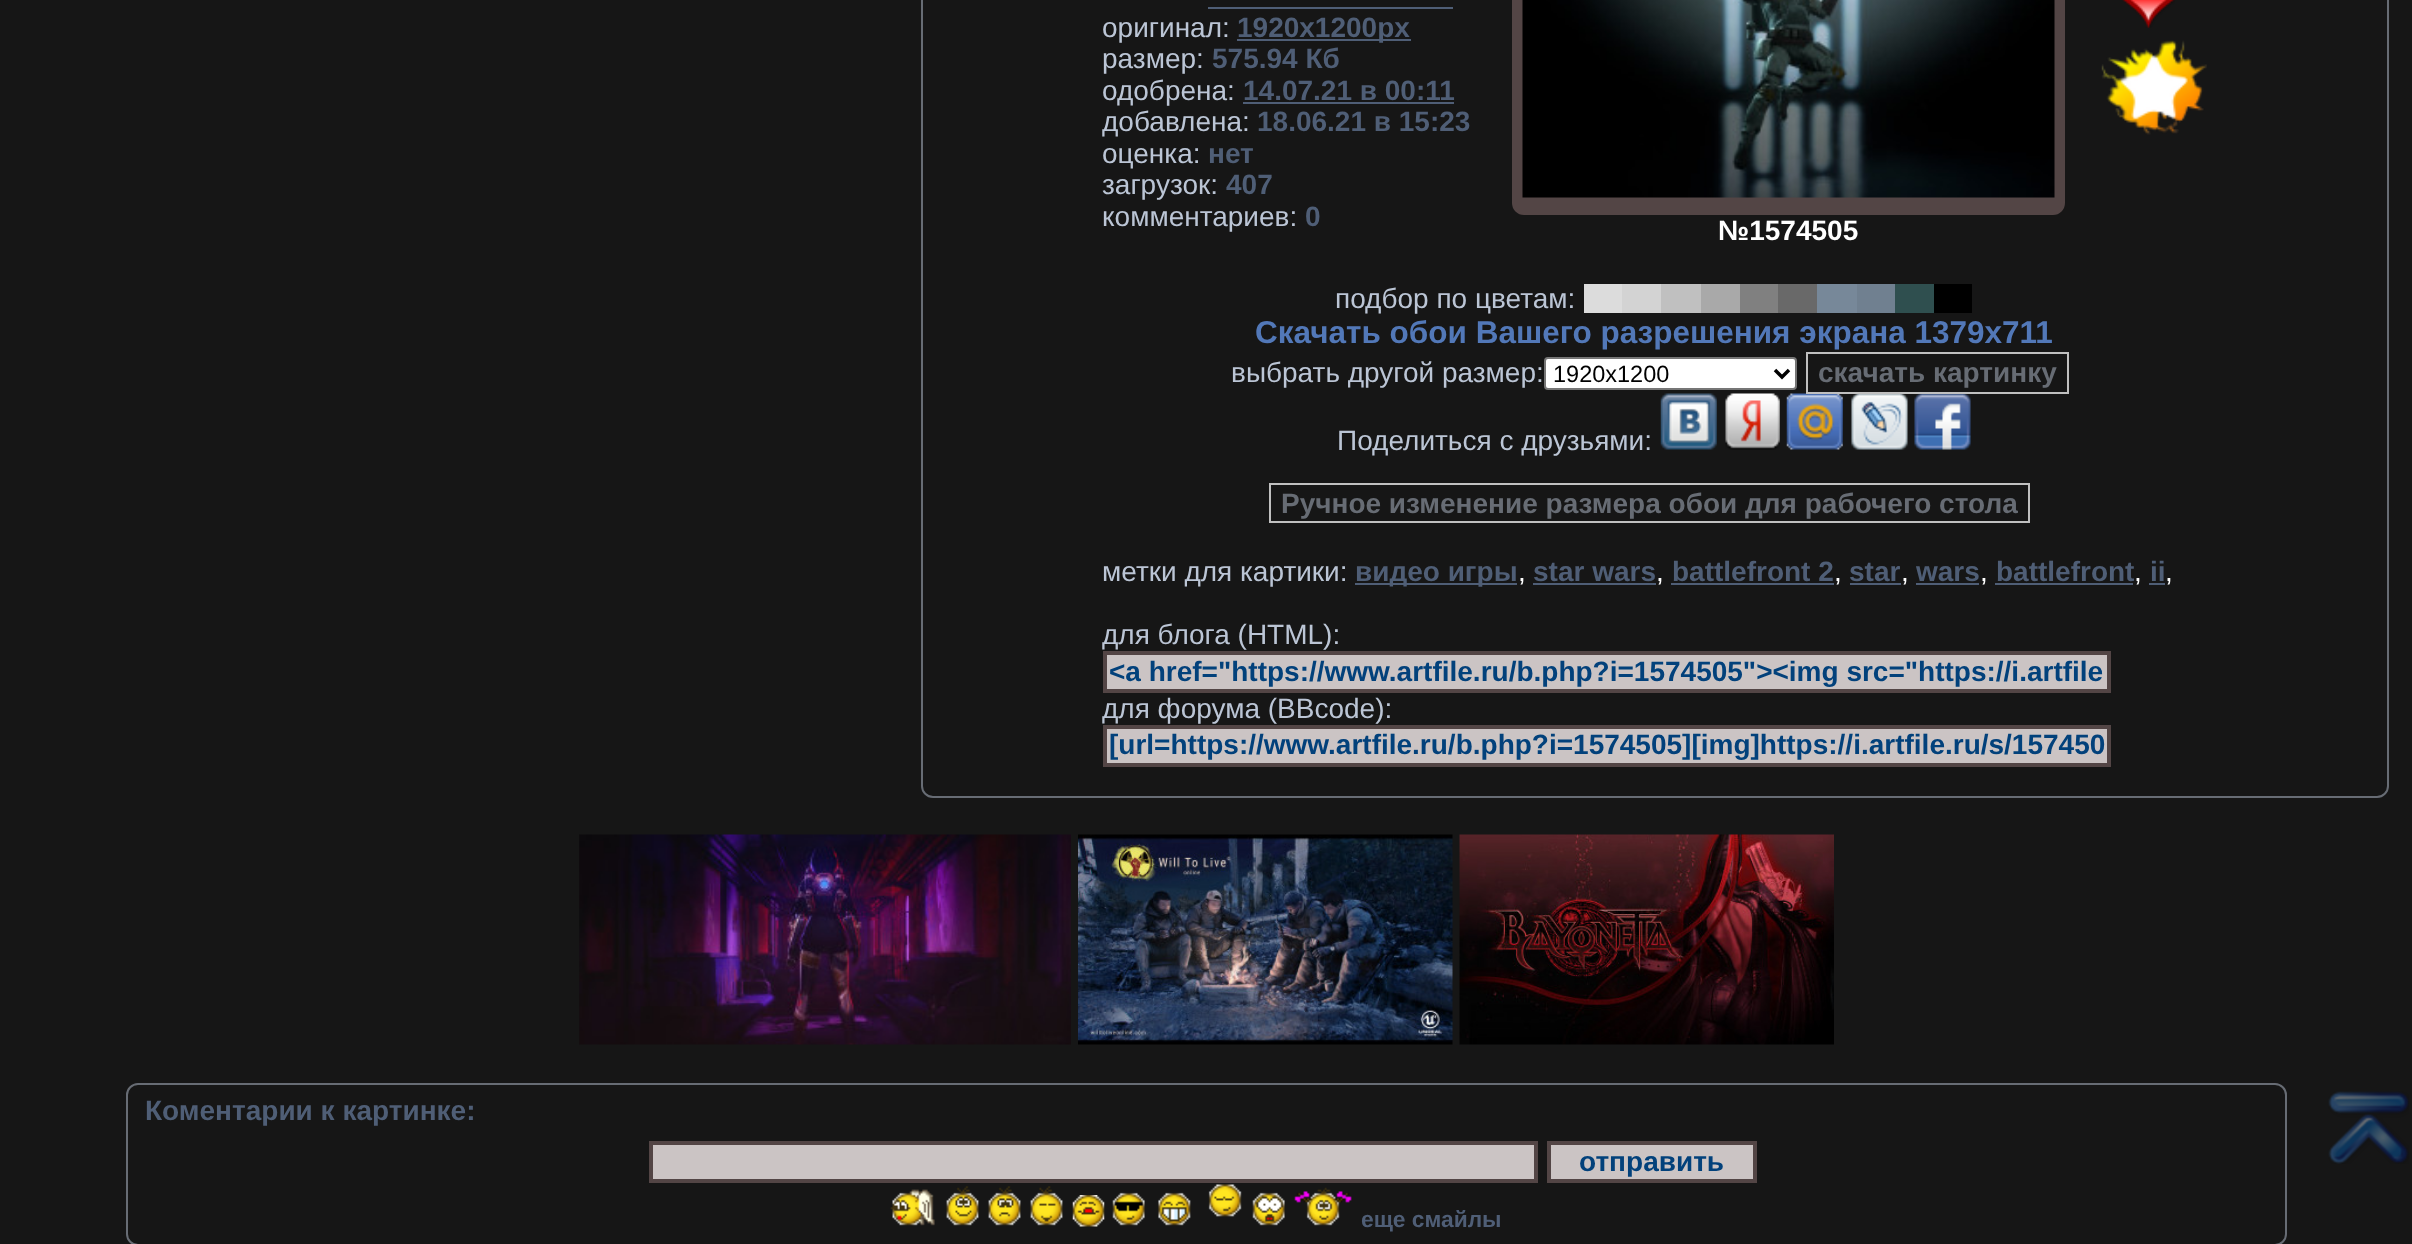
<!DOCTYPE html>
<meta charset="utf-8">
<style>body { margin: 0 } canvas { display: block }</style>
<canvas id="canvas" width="2412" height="1244"></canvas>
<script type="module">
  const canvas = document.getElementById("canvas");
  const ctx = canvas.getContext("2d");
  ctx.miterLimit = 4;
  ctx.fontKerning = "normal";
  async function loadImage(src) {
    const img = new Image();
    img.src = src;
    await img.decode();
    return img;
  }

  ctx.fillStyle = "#161616";
  ctx.fillRect(0, 0, 2412, 1244);
  ctx.beginPath();
  ctx.roundRect(922, -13, 1466, 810, 11);
  ctx.strokeStyle = "#676c74";
  ctx.lineWidth = 2;
  ctx.stroke();
  ctx.fillStyle = "#4f5e76";
  ctx.fillRect(1208, 7, 245, 2);
  ctx.font = "28px Liberation Sans";
  ctx.fillStyle = "#bbc5d5";
  ctx.fillText("оригинал:", 1102, 37);
  ctx.fillStyle = "#4f5e76";
  ctx.fillRect(1237, 39, 174, 2);
  ctx.font = "bold 28px Liberation Sans";
  ctx.fillText("1920х1200px", 1237, 37);
  ctx.font = "28px Liberation Sans";
  ctx.fillStyle = "#bbc5d5";
  ctx.fillText("размер:", 1102, 68);
  ctx.font = "bold 28px Liberation Sans";
  ctx.fillStyle = "#4f5e76";
  ctx.fillText("575.94 Кб", 1212, 68);
  ctx.font = "28px Liberation Sans";
  ctx.fillStyle = "#bbc5d5";
  ctx.fillText("одобрена:", 1102, 100);
  ctx.font = "bold 28px Liberation Sans";
  ctx.fillStyle = "#4f5e76";
  ctx.fillText("14.07.21 в 00:11", 1243, 100);
  ctx.fillRect(1243, 102, 211, 2);
  ctx.font = "28px Liberation Sans";
  ctx.fillStyle = "#bbc5d5";
  ctx.fillText("добавлена:", 1102, 131);
  ctx.font = "bold 28px Liberation Sans";
  ctx.fillStyle = "#4f5e76";
  ctx.fillText("18.06.21 в 15:23", 1257, 131);
  ctx.font = "28px Liberation Sans";
  ctx.fillStyle = "#bbc5d5";
  ctx.fillText("оценка:", 1102, 163);
  ctx.font = "bold 28px Liberation Sans";
  ctx.fillStyle = "#4f5e76";
  ctx.fillText("нет", 1208, 163);
  ctx.font = "28px Liberation Sans";
  ctx.fillStyle = "#bbc5d5";
  ctx.fillText("загрузок:", 1102, 194);
  ctx.font = "bold 28px Liberation Sans";
  ctx.fillStyle = "#4f5e76";
  ctx.fillText("407", 1226, 194);
  ctx.font = "28px Liberation Sans";
  ctx.fillStyle = "#bbc5d5";
  ctx.fillText("комментариев:", 1102, 226);
  ctx.font = "bold 28px Liberation Sans";
  ctx.fillStyle = "#4f5e76";
  ctx.fillText("0", 1305, 226);
  ctx.fillStyle = "#534545";
  ctx.beginPath();
  ctx.roundRect(1512, -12, 553, 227, 12);
  ctx.fill();
  ctx.drawImage(await loadImage("img1.png"), 1522, 0, 533, 198);
  ctx.fillStyle = "#ffffff";
  ctx.fillText("№1574505", 1718, 240);
  ctx.drawImage(await loadImage("img2.png"), 2122, 0, 53, 28);
  ctx.drawImage(await loadImage("img3.png"), 2101, 40, 106, 95);
  ctx.font = "28px Liberation Sans";
  ctx.fillStyle = "#bbc5d5";
  ctx.fillText("подбор по цветам:", 1335, 308);
  ctx.fillStyle = "#dcdcdc";
  ctx.fillRect(1584, 284, 38, 29);
  ctx.fillStyle = "#d3d3d3";
  ctx.fillRect(1622, 284, 39, 29);
  ctx.fillStyle = "#c0c0c0";
  ctx.fillRect(1661, 284, 40, 29);
  ctx.fillStyle = "#a9a9a9";
  ctx.fillRect(1701, 284, 39, 29);
  ctx.fillStyle = "#808080";
  ctx.fillRect(1740, 284, 38, 29);
  ctx.fillStyle = "#696969";
  ctx.fillRect(1778, 284, 39, 29);
  ctx.fillStyle = "#778899";
  ctx.fillRect(1817, 284, 40, 29);
  ctx.fillStyle = "#708090";
  ctx.fillRect(1857, 284, 38, 29);
  ctx.fillStyle = "#2f4f4f";
  ctx.fillRect(1895, 284, 39, 29);
  ctx.fillStyle = "#000000";
  ctx.fillRect(1934, 284, 38, 29);
  ctx.font = "bold 31.5px Liberation Sans";
  ctx.fillStyle = "#5278b8";
  ctx.fillText("Скачать обои Вашего разрешения экрана 1379x711", 1255, 343);
  ctx.font = "28px Liberation Sans";
  ctx.fillStyle = "#bbc5d5";
  ctx.fillText("выбрать другой размер:", 1231, 382);
  ctx.fillStyle = "#ffffff";
  ctx.beginPath();
  ctx.roundRect(1545, 358, 251, 31, 3);
  ctx.fill();
  ctx.strokeStyle = "#767676";
  ctx.stroke();
  ctx.beginPath();
  ctx.moveTo(1775, 370);
  ctx.lineTo(1782, 377);
  ctx.lineTo(1789, 370);
  ctx.strokeStyle = "#000000";
  ctx.lineWidth = 3.5;
  ctx.stroke();
  ctx.font = "23.5px Liberation Sans";
  ctx.fillStyle = "#000000";
  ctx.fillText("1920x1200", 1553, 382);
  ctx.drawImage(await loadImage("img6.png"), 1786, 393, 57, 57);
  ctx.strokeStyle = "#c0c0c0";
  ctx.lineWidth = 2;
  ctx.strokeRect(1807, 353, 261, 40);
  ctx.font = "bold 28px Liberation Sans";
  ctx.fillStyle = "#676c74";
  ctx.fillText("скачать картинку", 1818, 382);
  ctx.font = "28px Liberation Sans";
  ctx.fillStyle = "#bbc5d5";
  ctx.fillText("Поделиться с друзьями:", 1337, 450);
  ctx.drawImage(await loadImage("img4.png"), 1660, 393, 57, 57);
  ctx.drawImage(await loadImage("img5.png"), 1725, 393, 55, 57);
  ctx.drawImage(await loadImage("img7.png"), 1851, 394, 57, 56);
  ctx.drawImage(await loadImage("img8.png"), 1914, 394, 57, 56);
  ctx.strokeRect(1270, 484, 759, 38);
  ctx.font = "bold 28px Liberation Sans";
  ctx.fillStyle = "#676c74";
  ctx.fillText("Ручное изменение размера обои для рабочего стола", 1281, 513);
  ctx.font = "28px Liberation Sans";
  ctx.fillStyle = "#bbc5d5";
  ctx.fillText("метки для картики:", 1102, 581);
  ctx.fillStyle = "#4f5e76";
  ctx.fillRect(1355, 583, 162, 2);
  ctx.font = "bold 28px Liberation Sans";
  ctx.fillText("видео игры", 1355, 581);
  ctx.font = "28px Liberation Sans";
  ctx.fillStyle = "#ffffff";
  ctx.fillText(",", 1518, 581);
  ctx.font = "bold 28px Liberation Sans";
  ctx.fillStyle = "#4f5e76";
  ctx.fillText("star wars", 1533, 581);
  ctx.fillRect(1533, 583, 123, 2);
  ctx.font = "28px Liberation Sans";
  ctx.fillStyle = "#ffffff";
  ctx.fillText(",", 1656, 581);
  ctx.font = "bold 28px Liberation Sans";
  ctx.fillStyle = "#4f5e76";
  ctx.fillText("battlefront 2", 1672, 581);
  ctx.fillRect(1671, 583, 163, 2);
  ctx.font = "28px Liberation Sans";
  ctx.fillStyle = "#ffffff";
  ctx.fillText(",", 1834, 581);
  ctx.font = "bold 28px Liberation Sans";
  ctx.fillStyle = "#4f5e76";
  ctx.fillText("star", 1849, 581);
  ctx.fillRect(1850, 583, 51, 2);
  ctx.font = "28px Liberation Sans";
  ctx.fillStyle = "#ffffff";
  ctx.fillText(",", 1901, 581);
  ctx.font = "bold 28px Liberation Sans";
  ctx.fillStyle = "#4f5e76";
  ctx.fillText("wars", 1916, 581);
  ctx.fillRect(1916, 583, 63, 2);
  ctx.font = "28px Liberation Sans";
  ctx.fillStyle = "#ffffff";
  ctx.fillText(",", 1980, 581);
  ctx.font = "bold 28px Liberation Sans";
  ctx.fillStyle = "#4f5e76";
  ctx.fillText("battlefront", 1996, 581);
  ctx.fillRect(1995, 583, 138, 2);
  ctx.font = "28px Liberation Sans";
  ctx.fillStyle = "#ffffff";
  ctx.fillText(",", 2134, 581);
  ctx.font = "bold 28px Liberation Sans";
  ctx.fillStyle = "#4f5e76";
  ctx.fillText("ii", 2150, 581);
  ctx.fillRect(2149, 583, 16, 2);
  ctx.font = "28px Liberation Sans";
  ctx.fillStyle = "#ffffff";
  ctx.fillText(",", 2165, 581);
  ctx.fillStyle = "#bbc5d5";
  ctx.fillText("для блога (HTML):", 1102, 644);
  ctx.fillStyle = "#cbc4c4";
  ctx.beginPath();
  ctx.rect(1105, 653, 1004, 38);
  ctx.fill();
  ctx.strokeStyle = "#534545";
  ctx.lineWidth = 4;
  ctx.stroke();
  ctx.font = "bold 28px Liberation Sans";
  ctx.fillStyle = "#02417b";
  ctx.fillText("<a href=\"https://www.artfile.ru/b.php?i=1574505\"><img src=\"https://i.artfile", 1109, 681);
  ctx.font = "28px Liberation Sans";
  ctx.fillStyle = "#bbc5d5";
  ctx.fillText("для форума (BBcode):", 1102, 718);
  ctx.fillStyle = "#cbc4c4";
  ctx.beginPath();
  ctx.rect(1105, 727, 1004, 38);
  ctx.fill();
  ctx.stroke();
  ctx.font = "bold 28px Liberation Sans";
  ctx.fillStyle = "#02417b";
  ctx.fillText("[url=https://www.artfile.ru/b.php?i=1574505][img]https://i.artfile.ru/s/157450", 1109, 754);
  ctx.drawImage(await loadImage("img9.png"), 579, 834, 492, 211);
  ctx.drawImage(await loadImage("img10.png"), 1078, 834, 375, 211);
  ctx.drawImage(await loadImage("img11.png"), 1459, 834, 375, 211);
  ctx.beginPath();
  ctx.roundRect(127, 1084, 2159, 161, 11);
  ctx.strokeStyle = "#676c74";
  ctx.lineWidth = 2;
  ctx.stroke();
  ctx.fillStyle = "#4f5e76";
  ctx.fillText("Коментарии к картинке:", 145, 1120);
  ctx.fillStyle = "#cbc4c4";
  ctx.beginPath();
  ctx.rect(651, 1143, 885, 38);
  ctx.fill();
  ctx.strokeStyle = "#534545";
  ctx.lineWidth = 4;
  ctx.stroke();
  ctx.beginPath();
  ctx.rect(1549, 1143, 206, 38);
  ctx.fill();
  ctx.stroke();
  ctx.fillStyle = "#02417b";
  ctx.fillText("отправить", 1579, 1171);
  ctx.drawImage(await loadImage("img12.png"), 890, 1189, 45, 37);
  ctx.drawImage(await loadImage("img13.png"), 946, 1186, 33, 40);
  ctx.drawImage(await loadImage("img14.png"), 988, 1186, 33, 40);
  ctx.drawImage(await loadImage("img15.png"), 1030, 1186, 33, 40);
  ctx.drawImage(await loadImage("img16.png"), 1072, 1195, 33, 32);
  ctx.drawImage(await loadImage("img17.png"), 1112, 1192, 33, 34);
  ctx.drawImage(await loadImage("img18.png"), 1158, 1192, 33, 34);
  ctx.drawImage(await loadImage("img19.png"), 1208, 1184, 34, 33);
  ctx.drawImage(await loadImage("img20.png"), 1252, 1192, 33, 34);
  ctx.drawImage(await loadImage("img21.png"), 1294, 1187, 58, 39);
  ctx.font = "bold 22.75px Liberation Sans";
  ctx.fillStyle = "#4f5e76";
  ctx.fillText("еще смайлы", 1361, 1227);
  ctx.drawImage(await loadImage("img22.png"), 2328, 1091, 81, 73);
</script>
